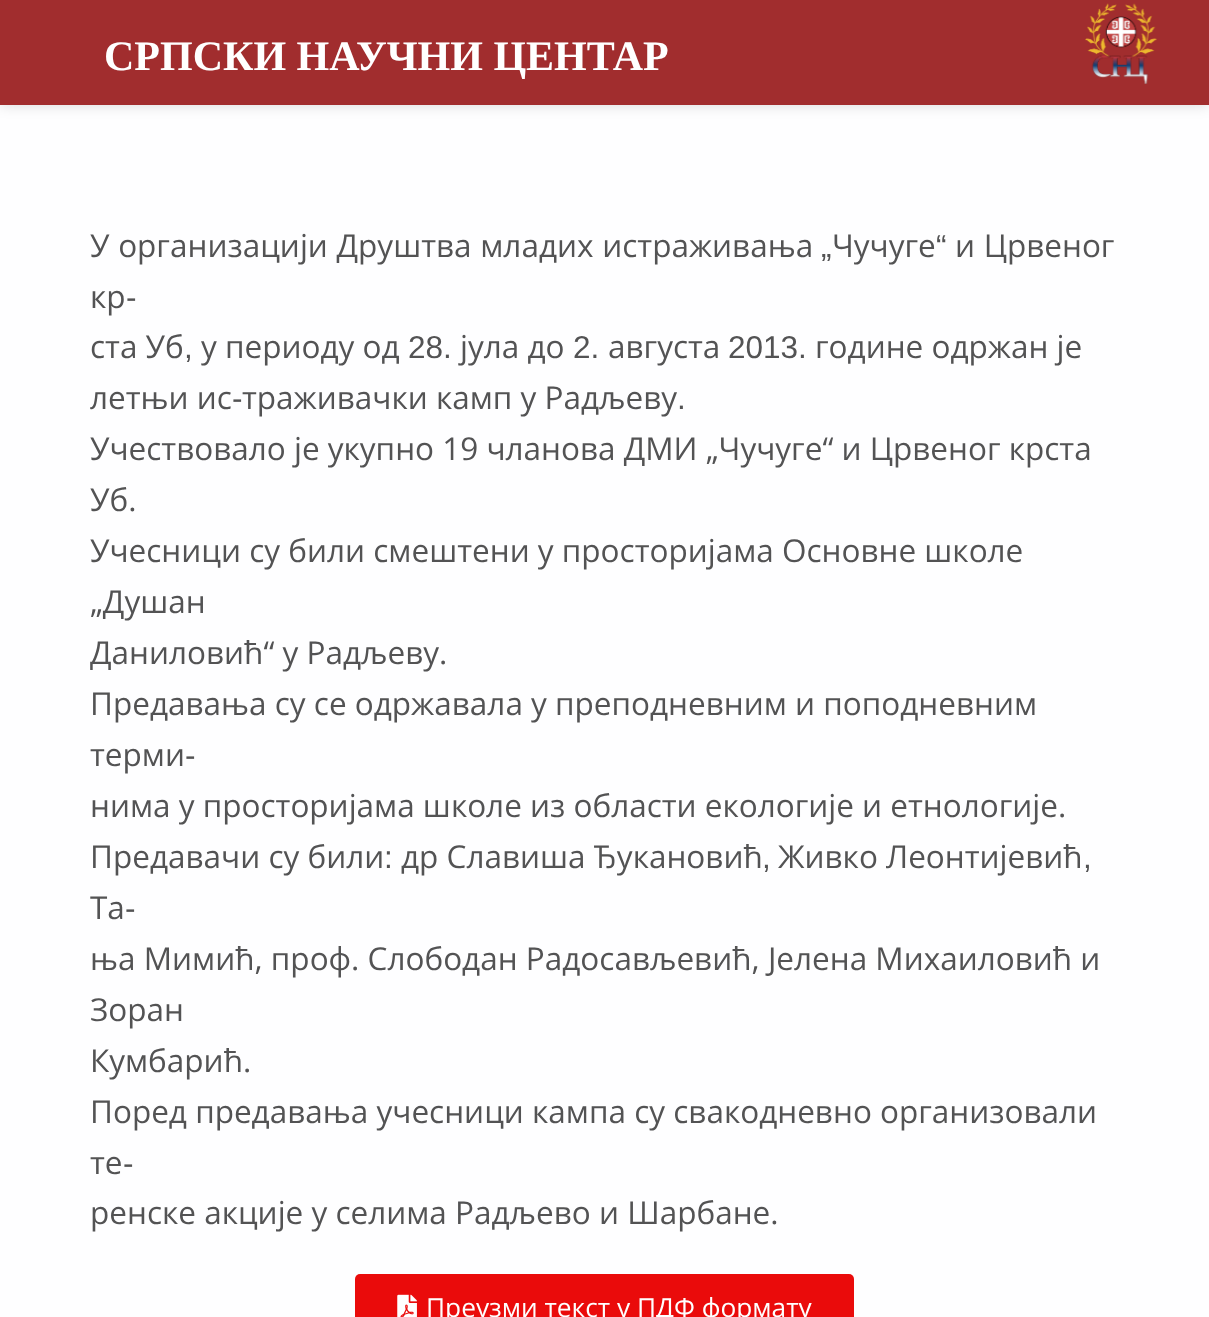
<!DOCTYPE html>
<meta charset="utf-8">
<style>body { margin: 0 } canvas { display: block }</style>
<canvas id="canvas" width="1209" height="1317"></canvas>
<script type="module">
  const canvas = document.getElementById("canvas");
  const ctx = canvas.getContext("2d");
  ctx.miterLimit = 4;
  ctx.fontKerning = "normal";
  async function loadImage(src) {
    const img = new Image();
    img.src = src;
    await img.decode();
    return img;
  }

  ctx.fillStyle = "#fefeff";
  ctx.fillRect(0, 0, 1209, 1317);
  ctx.fillStyle = "rgba(0, 0, 0, 0.15)";
  ctx.filter = "blur(7px)";
  ctx.beginPath();
  ctx.rect(0, 0, 1209, 105);
  ctx.fill();
  ctx.filter = "none";
  ctx.fillStyle = "#a12d2e";
  ctx.fillRect(0, 0, 1209, 105);
  ctx.font = "bold 42px Liberation Serif";
  ctx.fillStyle = "#ffffff";
  ctx.fillText("СРПСКИ НАУЧНИ ЦЕНТАР", 104, 70);
  ctx.drawImage(await loadImage("img1.png"), 1085, 3, 72, 81);
  ctx.wordSpacing = "0.5px";
  ctx.font = "31.5px Open Sans";
  ctx.fillStyle = "#535354";
  ctx.fillText("У организацији Друштва младих истраживања", 90, 257);
  ctx.wordSpacing = "0px";
  ctx.fillText("Чучуге", 832, 257);
  ctx.font = "31.5px Liberation Sans";
  ctx.fillText("“", 936, 257);
  ctx.wordSpacing = "0.5px";
  ctx.font = "31.5px Open Sans";
  ctx.fillText("и Црвеног", 955, 257);
  ctx.wordSpacing = "0px";
  ctx.font = "31.5px Liberation Sans";
  ctx.fillText("„", 821, 257);
  ctx.font = "31.5px Open Sans";
  ctx.fillText("кр", 90, 308);
  ctx.font = "31.5px Liberation Sans";
  ctx.fillText("‐", 126, 308);
  ctx.font = "31.5px Open Sans";
  ctx.fillText("ста Уб", 90, 358);
  ctx.font = "31.5px Liberation Sans";
  ctx.fillText(",", 184, 358);
  ctx.font = "31.5px Open Sans";
  ctx.fillText("у периоду од", 201, 358);
  ctx.font = "31.5px Liberation Sans";
  ctx.fillText("28.", 408, 358);
  ctx.font = "31.5px Open Sans";
  ctx.fillText("јула до", 460, 358);
  ctx.font = "31.5px Liberation Sans";
  ctx.fillText("2.", 573, 358);
  ctx.font = "31.5px Open Sans";
  ctx.fillText("августа", 608, 358);
  ctx.font = "31.5px Liberation Sans";
  ctx.fillText("2013.", 728, 358);
  ctx.font = "31.5px Open Sans";
  ctx.fillText("године одржан је", 815, 358);
  ctx.fillText("летњи ис", 90, 409);
  ctx.font = "31.5px Liberation Sans";
  ctx.fillText("‐", 232, 409);
  ctx.font = "31.5px Open Sans";
  ctx.fillText("траживачки камп у Радљеву", 242, 409);
  ctx.font = "31.5px Liberation Sans";
  ctx.fillText(".", 677, 409);
  ctx.font = "31.5px Open Sans";
  ctx.fillText("Учествовало је укупно 19 чланова ДМИ „Чучуге“ и Црвеног крста", 90, 460);
  ctx.fillText("Уб.", 90, 511);
  ctx.fillText("Учесници су били смештени у просторијама Основне школе", 90, 562);
  ctx.fillText("„Душан", 90, 613);
  ctx.fillText("Даниловић“ у Радљеву.", 90, 664);
  ctx.fillText("Предавања су се одржавала у преподневним и поподневним", 90, 715);
  ctx.fillText("терми", 90, 766);
  ctx.font = "31.5px Liberation Sans";
  ctx.fillText("‐", 185, 766);
  ctx.font = "31.5px Open Sans";
  ctx.fillText("нима у просторијама школе из области екологије и етнологије.", 90, 817);
  ctx.fillText("Предавачи су били", 90, 868);
  ctx.font = "31.5px Liberation Sans";
  ctx.fillText(":", 384, 868);
  ctx.font = "31.5px Open Sans";
  ctx.fillText("др Славиша Ђукановић", 401, 868);
  ctx.font = "31.5px Liberation Sans";
  ctx.fillText(",", 762, 868);
  ctx.font = "31.5px Open Sans";
  ctx.fillText("Живко Леонтијевић", 778, 868);
  ctx.font = "31.5px Liberation Sans";
  ctx.fillText(",", 1083, 868);
  ctx.font = "31.5px Open Sans";
  ctx.fillText("Та", 90, 919);
  ctx.font = "31.5px Liberation Sans";
  ctx.fillText("‐", 125, 919);
  ctx.font = "31.5px Open Sans";
  ctx.fillText("ња Мимић, проф. Слободан Радосављевић, Јелена Михаиловић и", 90, 970);
  ctx.fillText("Зоран", 90, 1021);
  ctx.fillText("Кумбарић.", 90, 1072);
  ctx.fillText("Поред предавања учесници кампа су свакодневно организовали", 90, 1123);
  ctx.fillText("те", 90, 1174);
  ctx.font = "31.5px Liberation Sans";
  ctx.fillText("‐", 123, 1174);
  ctx.font = "31.5px Open Sans";
  ctx.fillText("ренске акције у селима Радљево и Шарбане.", 90, 1224);
  ctx.fillStyle = "#ea0b0b";
  ctx.beginPath();
  ctx.roundRect(355, 1274, 499, 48, 5);
  ctx.fill();
  ctx.drawImage(await loadImage("img2.png"), 397, 1294, 20, 23);
  ctx.font = "26.25px Open Sans";
  ctx.fillStyle = "#ffffff";
  ctx.fillText("Преузми текст у ПДФ формату", 426, 1317);
</script>
